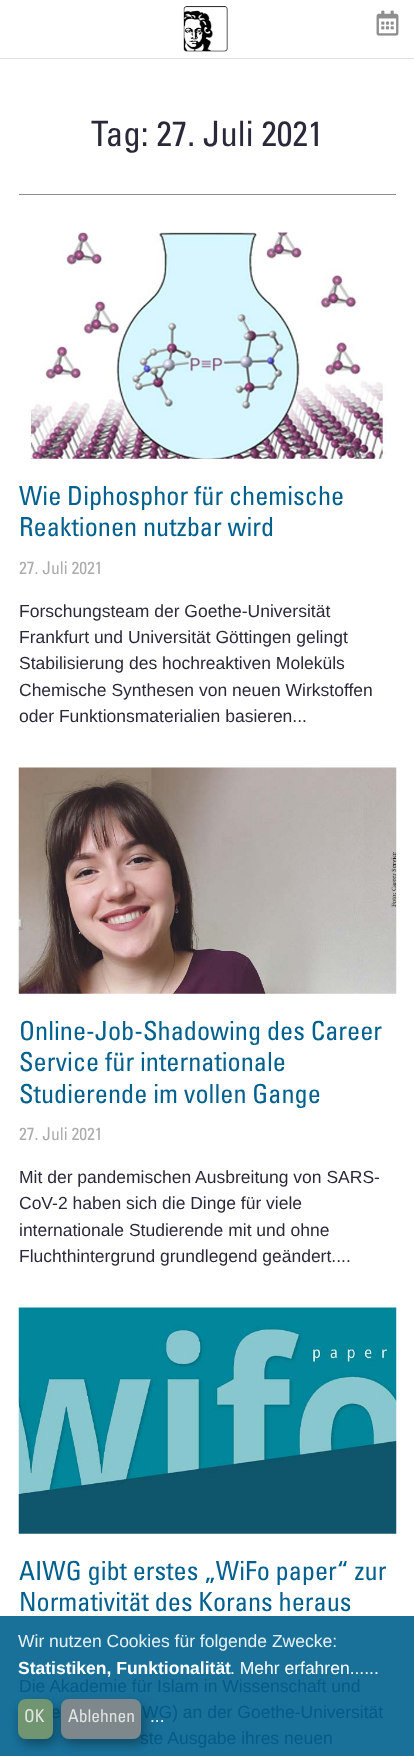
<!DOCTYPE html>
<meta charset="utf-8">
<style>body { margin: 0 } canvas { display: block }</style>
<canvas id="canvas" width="414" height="1756"></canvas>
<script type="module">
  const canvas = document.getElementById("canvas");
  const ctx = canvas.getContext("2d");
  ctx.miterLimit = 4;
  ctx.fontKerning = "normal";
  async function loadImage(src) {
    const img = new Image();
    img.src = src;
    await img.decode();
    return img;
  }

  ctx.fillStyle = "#ffffff";
  ctx.fillRect(0, 0, 414, 1756);
  ctx.fillStyle = "#19719a";
  ctx.fillRect(0, 1616, 414, 140);
  ctx.fillStyle = "#e0e0e0";
  ctx.fillRect(0, 58, 414, 1);
  ctx.drawImage(await loadImage("img1.png"), 183, 6, 45, 46);
  ctx.drawImage(await loadImage("img2.png"), 376, 10, 23, 26);
  ctx.font = "35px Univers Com";
  ctx.fillStyle = "#29293a";
  ctx.fillText("Tag: 27. Juli 2021", 91, 146);
  ctx.fillStyle = "#8e8e8e";
  ctx.fillRect(19, 194, 377, 1);
  ctx.drawImage(await loadImage("img3.png"), 26, 232, 365, 227);
  ctx.font = "26.25px Univers Com";
  ctx.fillStyle = "#00618f";
  ctx.fillText("Wie Diphosphor für chemische", 19, 505);
  ctx.fillText("Reaktionen nutzbar wird", 19, 536);
  ctx.font = "17.5px Univers Com";
  ctx.fillStyle = "#adadad";
  ctx.fillText("27. Juli 2021", 19, 574);
  ctx.font = "17.5px Liberation Sans";
  ctx.fillStyle = "#29293a";
  ctx.fillText("Forschungsteam der Goethe-Universität", 19, 617);
  ctx.fillText("Frankfurt und Universität Göttingen gelingt", 19, 643);
  ctx.fillText("Stabilisierung des hochreaktiven Moleküls", 19, 669);
  ctx.fillText("Chemische Synthesen von neuen Wirkstoffen", 19, 696);
  ctx.fillText("oder Funktionsmaterialien basieren...", 19, 722);
  ctx.drawImage(await loadImage("img4.png"), 18, 767, 379, 227);
  ctx.font = "26.25px Univers Com";
  ctx.fillStyle = "#00618f";
  ctx.fillText("Online-Job-Shadowing des Career", 19, 1040);
  ctx.fillText("Service für internationale", 19, 1071);
  ctx.fillText("Studierende im vollen Gange", 19, 1103);
  ctx.font = "17.5px Univers Com";
  ctx.fillStyle = "#adadad";
  ctx.fillText("27. Juli 2021", 19, 1140);
  ctx.font = "17.5px Liberation Sans";
  ctx.fillStyle = "#29293a";
  ctx.fillText("Mit der pandemischen Ausbreitung von SARS-", 19, 1183);
  ctx.fillText("CoV-2 haben sich die Dinge für viele", 19, 1209);
  ctx.fillText("internationale Studierende mit und ohne", 19, 1236);
  ctx.fillText("Fluchthintergrund grundlegend geändert....", 19, 1262);
  ctx.drawImage(await loadImage("img5.png"), 18, 1307, 379, 227);
  ctx.font = "26.25px Univers Com";
  ctx.fillStyle = "#00618f";
  ctx.fillText("AIWG gibt erstes „WiFo paper“ zur", 19, 1580);
  ctx.fillText("Normativität des Korans heraus", 19, 1611);
  ctx.font = "17.5px Liberation Sans";
  ctx.fillStyle = "#045b87";
  ctx.fillText("Die Akademie für Islam in Wissenschaft und", 19, 1692);
  ctx.fillText("e", 51, 1718);
  ctx.fillText("WG) an der Goethe-Universität", 142, 1718);
  ctx.fillText("ste Ausgabe ihres neuen", 140, 1744);
  ctx.fillStyle = "#e8f1f5";
  ctx.fillText("Wir nutzen Cookies für folgende Zwecke:", 18, 1647);
  ctx.font = "bold 17.5px Liberation Sans";
  ctx.fillStyle = "#ffffff";
  ctx.fillText("Statistiken, Funktionalität", 18, 1674);
  ctx.font = "17.5px Liberation Sans";
  ctx.fillText(". Mehr erfahren......", 230, 1674);
  ctx.save();
  ctx.beginPath();
  ctx.moveTo(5, 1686);
  ctx.lineTo(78, 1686);
  ctx.lineTo(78, 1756);
  ctx.lineTo(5, 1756);
  ctx.closePath();
  ctx.moveTo(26, 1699);
  ctx.lineTo(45, 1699);
  ctx.bezierCurveTo(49.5, 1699, 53, 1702.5, 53, 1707);
  ctx.lineTo(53, 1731);
  ctx.bezierCurveTo(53, 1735.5, 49.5, 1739, 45, 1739);
  ctx.lineTo(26, 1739);
  ctx.bezierCurveTo(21.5, 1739, 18, 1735.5, 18, 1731);
  ctx.lineTo(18, 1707);
  ctx.bezierCurveTo(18, 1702.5, 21.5, 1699, 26, 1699);
  ctx.closePath();
  ctx.clip("evenodd");
  ctx.fillStyle = "rgba(0, 0, 0, 0.17)";
  ctx.filter = "blur(6px)";
  ctx.beginPath();
  ctx.roundRect(24, 1705, 35, 40, 8);
  ctx.fill();
  ctx.filter = "none";
  ctx.restore();
  ctx.save();
  ctx.beginPath();
  ctx.moveTo(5, 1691);
  ctx.lineTo(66, 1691);
  ctx.lineTo(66, 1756);
  ctx.lineTo(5, 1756);
  ctx.closePath();
  ctx.moveTo(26, 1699);
  ctx.lineTo(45, 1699);
  ctx.bezierCurveTo(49.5, 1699, 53, 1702.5, 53, 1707);
  ctx.lineTo(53, 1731);
  ctx.bezierCurveTo(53, 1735.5, 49.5, 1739, 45, 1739);
  ctx.lineTo(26, 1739);
  ctx.bezierCurveTo(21.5, 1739, 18, 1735.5, 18, 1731);
  ctx.lineTo(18, 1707);
  ctx.bezierCurveTo(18, 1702.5, 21.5, 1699, 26, 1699);
  ctx.closePath();
  ctx.clip("evenodd");
  ctx.fillStyle = "rgba(0, 0, 0, 0.18)";
  ctx.filter = "blur(4px)";
  ctx.beginPath();
  ctx.roundRect(18, 1704, 35, 40, 8);
  ctx.fill();
  ctx.filter = "none";
  ctx.restore();
  ctx.fillStyle = "rgba(123, 153, 107, 0.9)";
  ctx.beginPath();
  ctx.roundRect(18, 1699, 35, 40, 8);
  ctx.fill();
  ctx.font = "17.5px Univers Com";
  ctx.fillStyle = "#e1e5e1";
  ctx.fillText("OK", 24, 1722);
  ctx.save();
  ctx.beginPath();
  ctx.moveTo(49, 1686);
  ctx.lineTo(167, 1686);
  ctx.lineTo(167, 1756);
  ctx.lineTo(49, 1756);
  ctx.closePath();
  ctx.moveTo(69, 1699);
  ctx.lineTo(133, 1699);
  ctx.bezierCurveTo(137.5, 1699, 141, 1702.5, 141, 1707);
  ctx.lineTo(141, 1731);
  ctx.bezierCurveTo(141, 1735.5, 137.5, 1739, 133, 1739);
  ctx.lineTo(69, 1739);
  ctx.bezierCurveTo(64.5, 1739, 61, 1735.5, 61, 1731);
  ctx.lineTo(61, 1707);
  ctx.bezierCurveTo(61, 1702.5, 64.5, 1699, 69, 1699);
  ctx.closePath();
  ctx.clip("evenodd");
  ctx.fillStyle = "rgba(0, 0, 0, 0.17)";
  ctx.filter = "blur(6px)";
  ctx.beginPath();
  ctx.roundRect(68, 1705, 80, 40, 8);
  ctx.fill();
  ctx.filter = "none";
  ctx.restore();
  ctx.save();
  ctx.beginPath();
  ctx.moveTo(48, 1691);
  ctx.lineTo(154, 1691);
  ctx.lineTo(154, 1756);
  ctx.lineTo(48, 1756);
  ctx.closePath();
  ctx.moveTo(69, 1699);
  ctx.lineTo(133, 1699);
  ctx.bezierCurveTo(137.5, 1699, 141, 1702.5, 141, 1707);
  ctx.lineTo(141, 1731);
  ctx.bezierCurveTo(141, 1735.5, 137.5, 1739, 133, 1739);
  ctx.lineTo(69, 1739);
  ctx.bezierCurveTo(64.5, 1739, 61, 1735.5, 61, 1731);
  ctx.lineTo(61, 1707);
  ctx.bezierCurveTo(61, 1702.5, 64.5, 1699, 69, 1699);
  ctx.closePath();
  ctx.clip("evenodd");
  ctx.fillStyle = "rgba(0, 0, 0, 0.18)";
  ctx.filter = "blur(4px)";
  ctx.beginPath();
  ctx.roundRect(61, 1704, 80, 40, 8);
  ctx.fill();
  ctx.filter = "none";
  ctx.restore();
  ctx.fillStyle = "rgba(137, 137, 137, 0.9)";
  ctx.beginPath();
  ctx.roundRect(61, 1699, 80, 40, 8);
  ctx.fill();
  ctx.fillStyle = "#e1e5e1";
  ctx.fillText("Ablehnen", 68, 1722);
  ctx.font = "17.5px Liberation Sans";
  ctx.fillStyle = "#ffffff";
  ctx.fillText("...", 150, 1722);
</script>
